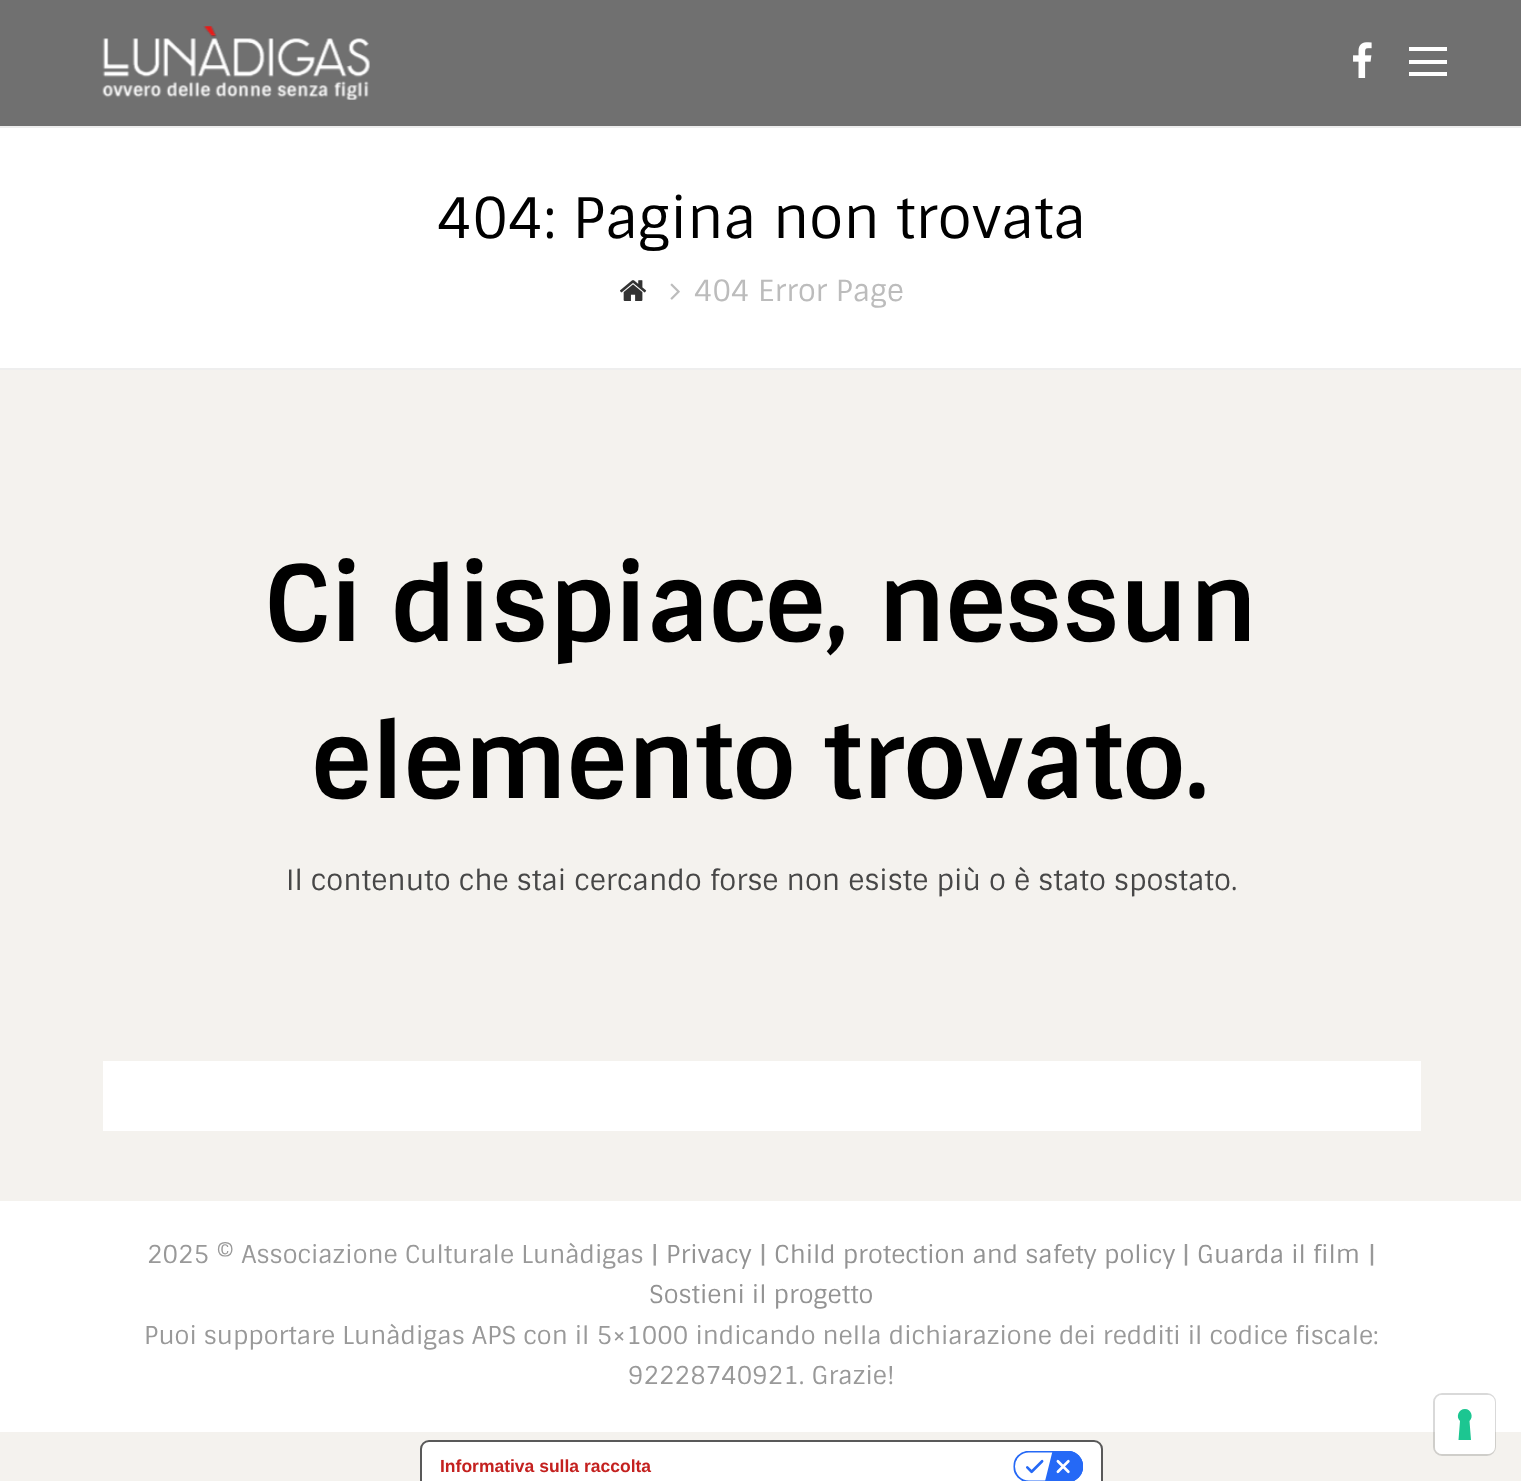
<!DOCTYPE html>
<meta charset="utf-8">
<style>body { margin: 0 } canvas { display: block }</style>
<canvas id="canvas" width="1521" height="1481"></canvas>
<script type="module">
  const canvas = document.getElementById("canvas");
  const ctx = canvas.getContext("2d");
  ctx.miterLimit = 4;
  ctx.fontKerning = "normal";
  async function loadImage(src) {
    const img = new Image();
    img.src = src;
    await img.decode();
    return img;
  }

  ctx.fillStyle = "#f4f2ee";
  ctx.fillRect(0, 0, 1521, 1481);
  ctx.fillStyle = "#707070";
  ctx.fillRect(0, 0, 1521, 126);
  ctx.drawImage(await loadImage("img1.png"), 102, 26, 268, 74);
  ctx.drawImage(await loadImage("img2.png"), 1353, 42, 19, 36);
  ctx.fillStyle = "#ffffff";
  ctx.fillRect(1409, 60, 38, 4);
  ctx.fillRect(1409, 47, 38, 4);
  ctx.fillRect(1409, 72, 38, 4);
  ctx.fillRect(0, 128, 1521, 240);
  ctx.fillStyle = "#eeeeee";
  ctx.fillRect(0, 126, 1521, 2);
  ctx.fillRect(0, 368, 1521, 2);
  ctx.font = "56px Sintony";
  ctx.fillStyle = "#000000";
  ctx.fillText("404: Pagina non trovata", 437, 238);
  ctx.drawImage(await loadImage("img3.png"), 620, 280, 27, 21);
  ctx.drawImage(await loadImage("img4.png"), 670, 283, 10, 17);
  ctx.font = "29.25px Sintony";
  ctx.fillStyle = "#bcbcbc";
  ctx.fillText("404 Error Page", 694, 301);
  ctx.font = "bold 104.5px Sintony";
  ctx.fillStyle = "#000000";
  ctx.fillText("Ci dispiace, nessun", 264, 641);
  ctx.fillText("elemento trovato.", 312, 798);
  ctx.font = "28px Sintony";
  ctx.fillStyle = "#474747";
  ctx.fillText("Il contenuto che stai cercando forse non esiste più o è stato spostato.", 286, 890);
  ctx.fillStyle = "#ffffff";
  ctx.fillRect(103, 1061, 1318, 70);
  ctx.fillRect(0, 1201, 1521, 231);
  ctx.font = "24.5px Sintony";
  ctx.fillStyle = "#999999";
  ctx.fillText("2025 © Associazione Culturale Lunàdigas |", 147, 1263);
  ctx.fillStyle = "#939393";
  ctx.fillText("Privacy", 666, 1263);
  ctx.fillStyle = "#999999";
  ctx.fillText("|", 759, 1263);
  ctx.fillStyle = "#939393";
  ctx.fillText("Child protection and safety policy", 774, 1263);
  ctx.fillStyle = "#999999";
  ctx.fillText("|", 1182, 1263);
  ctx.fillStyle = "#939393";
  ctx.fillText("Guarda il film", 1197, 1263);
  ctx.fillStyle = "#999999";
  ctx.fillText("|", 1368, 1263);
  ctx.fillStyle = "#939393";
  ctx.fillText("Sostieni il progetto", 649, 1303);
  ctx.fillStyle = "#999999";
  ctx.fillText("Puoi supportare Lunàdigas APS con il 5×1000 indicando nella dichiarazione dei redditi il codice fiscale:", 144, 1344);
  ctx.fillText("92228740921. Grazie!", 628, 1384);
  ctx.beginPath();
  ctx.roundRect(1434, 1394, 61, 61, 8);
  ctx.strokeStyle = "rgba(0, 0, 0, 0.15)";
  ctx.lineWidth = 2;
  ctx.stroke();
  ctx.fillStyle = "#ffffff";
  ctx.beginPath();
  ctx.roundRect(1435, 1395, 60, 59, 7);
  ctx.fill();
  ctx.fillStyle = "#1cc691";
  ctx.beginPath();
  ctx.moveTo(1465, 1409);
  ctx.bezierCurveTo(1471, 1409, 1474, 1417, 1469.5, 1421);
  ctx.lineTo(1471, 1440);
  ctx.lineTo(1458.5, 1440);
  ctx.lineTo(1460, 1421);
  ctx.bezierCurveTo(1455.5, 1417, 1458.5, 1409, 1465, 1409);
  ctx.closePath();
  ctx.fill("evenodd");
  ctx.fillStyle = "#ffffff";
  ctx.beginPath();
  ctx.roundRect(421, 1441, 681, 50, 8);
  ctx.fill();
  ctx.strokeStyle = "#595959";
  ctx.stroke();
  ctx.font = "bold 17.5px Liberation Sans";
  ctx.fillStyle = "#c4211f";
  ctx.fillText("Informativa sulla raccolta", 440, 1472);
  ctx.drawImage(await loadImage("img5.png"), 1013, 1451, 70, 30);
</script>
